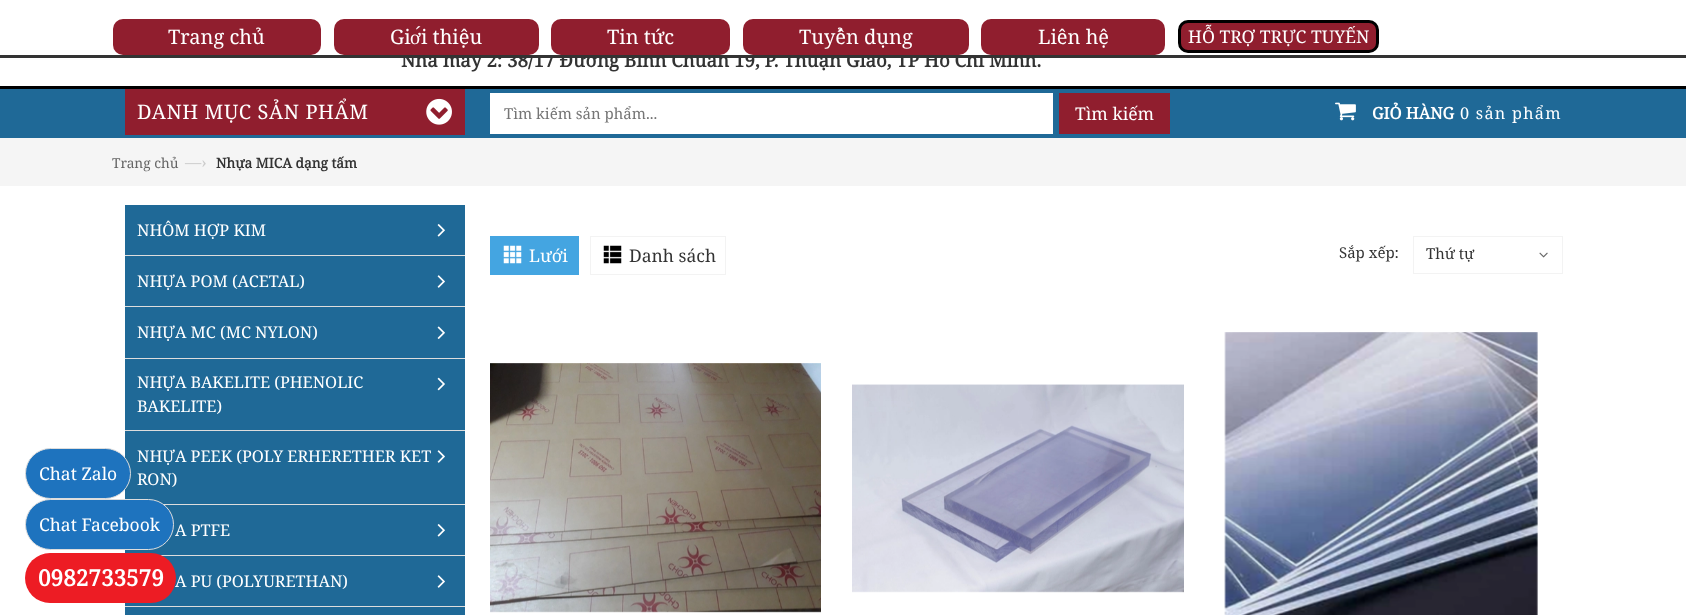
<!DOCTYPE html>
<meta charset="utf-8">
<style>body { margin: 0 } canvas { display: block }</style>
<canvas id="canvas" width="1686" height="615"></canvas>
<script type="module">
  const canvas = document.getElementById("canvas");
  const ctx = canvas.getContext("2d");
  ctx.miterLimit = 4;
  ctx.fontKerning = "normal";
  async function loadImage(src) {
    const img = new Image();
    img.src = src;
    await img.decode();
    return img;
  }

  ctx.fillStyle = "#ffffff";
  ctx.fillRect(0, 0, 1686, 615);
  ctx.fillStyle = "#000000";
  ctx.fillRect(0, 86, 1686, 3);
  ctx.font = "bold 18.75px Noto Serif";
  ctx.fillStyle = "#333333";
  ctx.fillText("Nhà máy 2: 38/17 Đường Bình Chuẩn 19, P. Thuận Giao, TP Hồ Chí Minh.", 401, 67);
  ctx.fillStyle = "#ffffff";
  ctx.fillRect(402, 50, 627, 5);
  ctx.fillStyle = "#333333";
  ctx.fillRect(0, 55, 1686, 3);
  ctx.fillStyle = "#901e2e";
  ctx.beginPath();
  ctx.roundRect(113, 19, 208, 36, 10);
  ctx.fill();
  ctx.font = "20px Noto Serif";
  ctx.fillStyle = "#ffffff";
  ctx.fillText("Trang chủ", 168, 44);
  ctx.fillStyle = "#901e2e";
  ctx.beginPath();
  ctx.roundRect(334, 19, 205, 36, 10);
  ctx.fill();
  ctx.fillStyle = "#ffffff";
  ctx.fillText("Gi", 390, 44);
  ctx.font = "20px Liberation Serif";
  ctx.fillText("ớ", 410, 44);
  ctx.font = "20px Noto Serif";
  ctx.fillText("i thiệu", 421, 44);
  ctx.fillStyle = "#901e2e";
  ctx.beginPath();
  ctx.roundRect(551, 19, 179, 36, 10);
  ctx.fill();
  ctx.fillStyle = "#ffffff";
  ctx.fillText("Tin tức", 607, 44);
  ctx.fillStyle = "#901e2e";
  ctx.beginPath();
  ctx.roundRect(743, 19, 226, 36, 10);
  ctx.fill();
  ctx.fillStyle = "#ffffff";
  ctx.fillText("Tuyển dụng", 799, 44);
  ctx.fillStyle = "#901e2e";
  ctx.beginPath();
  ctx.roundRect(981, 19, 184, 36, 10);
  ctx.fill();
  ctx.fillStyle = "#ffffff";
  ctx.fillText("Liên hệ", 1038, 44);
  ctx.fillStyle = "#901e2e";
  ctx.beginPath();
  ctx.roundRect(1179.5, 21.5, 198, 30, 8.5);
  ctx.fill();
  ctx.strokeStyle = "#000000";
  ctx.lineWidth = 3;
  ctx.stroke();
  ctx.font = "17.5px Noto Serif";
  ctx.fillStyle = "#ffffff";
  ctx.fillText("HỖ TRỢ TRỰC TUYẾN", 1188, 43);
  ctx.fillStyle = "#1f6997";
  ctx.fillRect(0, 89, 1686, 49);
  ctx.fillStyle = "#901e2e";
  ctx.fillRect(125, 89, 340, 46);
  ctx.letterSpacing = "0.6px";
  ctx.font = "20px Noto Serif";
  ctx.fillStyle = "#ffffff";
  ctx.fillText("DANH MỤC SẢN PHẨM", 137, 119);
  ctx.drawImage(await loadImage("img1.png"), 426, 98, 26, 27);
  ctx.fillRect(490, 93, 563, 41);
  ctx.letterSpacing = "0px";
  ctx.font = "15px Noto Serif";
  ctx.fillStyle = "#757575";
  ctx.fillText("Tìm kiếm sản phẩm...", 504, 119);
  ctx.fillStyle = "#901e2e";
  ctx.fillRect(1059, 93, 111, 41);
  ctx.font = "17.5px Noto Serif";
  ctx.fillStyle = "#ffffff";
  ctx.fillText("Tìm kiếm", 1075, 120);
  ctx.drawImage(await loadImage("img2.png"), 1335, 102, 21, 19);
  ctx.font = "bold 16.25px Noto Serif";
  ctx.fillText("GIỎ HÀNG", 1372, 119);
  ctx.letterSpacing = "1.25px";
  ctx.font = "16.25px Noto Serif";
  ctx.fillText("0 sản phẩm", 1460, 119);
  ctx.fillStyle = "#f5f5f5";
  ctx.fillRect(0, 138, 1686, 48);
  ctx.letterSpacing = "0px";
  ctx.font = "13.75px Noto Serif";
  ctx.fillStyle = "#666666";
  ctx.fillText("Trang chủ", 112, 168);
  ctx.font = "16.25px Noto Serif";
  ctx.fillStyle = "#cccccc";
  ctx.fillText("—›", 185, 168);
  ctx.font = "bold 13.75px Noto Serif";
  ctx.fillStyle = "#333333";
  ctx.fillText("Nhựa MICA dạng tấm", 216, 168);
  ctx.fillStyle = "#1f6997";
  ctx.fillRect(125, 205, 340, 410);
  ctx.fillStyle = "#1e73be";
  ctx.beginPath();
  ctx.roundRect(25.5, 448.5, 105, 50, 25);
  ctx.fill();
  ctx.strokeStyle = "#dddddd";
  ctx.lineWidth = 1;
  ctx.stroke();
  ctx.font = "17.5px Noto Serif";
  ctx.fillStyle = "#ffffff";
  ctx.fillText("Chat Zalo", 39, 480);
  ctx.fillStyle = "#dddddd";
  ctx.fillRect(125, 255, 340, 1);
  ctx.font = "16.25px Noto Serif";
  ctx.fillStyle = "#ffffff";
  ctx.fillText("NHÔM HỢP KIM", 137, 236);
  ctx.drawImage(await loadImage("img3.png"), 437, 224, 8, 13);
  ctx.fillStyle = "#dddddd";
  ctx.fillRect(125, 306, 340, 1);
  ctx.fillStyle = "#ffffff";
  ctx.fillText("NHỰA POM (ACETAL)", 137, 287);
  ctx.drawImage(await loadImage("img4.png"), 437, 275, 8, 13);
  ctx.fillStyle = "#dddddd";
  ctx.fillRect(125, 358, 340, 1);
  ctx.fillStyle = "#ffffff";
  ctx.fillText("NHỰA MC (MC NYLON)", 137, 338);
  ctx.drawImage(await loadImage("img5.png"), 437, 326, 8, 13);
  ctx.fillStyle = "#dddddd";
  ctx.fillRect(125, 430, 340, 1);
  ctx.fillStyle = "#ffffff";
  ctx.fillText("NHỰA BAKELITE (PHENOLIC", 137, 388);
  ctx.fillText("BAKELITE)", 137, 412);
  ctx.drawImage(await loadImage("img6.png"), 437, 377, 8, 14);
  ctx.fillStyle = "#dddddd";
  ctx.fillRect(163, 504, 302, 1);
  ctx.fillStyle = "#ffffff";
  ctx.fillText("NHỰA PEEK (POLY ERHERETHER KET", 137, 462);
  ctx.fillText("RON)", 137, 485);
  ctx.drawImage(await loadImage("img4.png"), 437, 450, 8, 13);
  ctx.fillStyle = "#dddddd";
  ctx.fillRect(160, 555, 305, 1);
  ctx.fillStyle = "#ffffff";
  ctx.fillText("A PTFE", 175, 536);
  ctx.drawImage(await loadImage("img3.png"), 437, 524, 8, 13);
  ctx.fillStyle = "#dddddd";
  ctx.fillRect(125, 606, 340, 1);
  ctx.fillStyle = "#ffffff";
  ctx.fillText("A PU (POLYURETHAN)", 175, 587);
  ctx.drawImage(await loadImage("img4.png"), 437, 575, 8, 13);
  ctx.fillStyle = "#44a5e1";
  ctx.fillRect(490, 236, 89, 39);
  ctx.drawImage(await loadImage("img7.png"), 503, 245, 19, 19);
  ctx.font = "17.5px Noto Serif";
  ctx.fillStyle = "#ffffff";
  ctx.fillText("Lưới", 529, 262);
  ctx.drawImage(await loadImage("img8.png"), 603, 245, 19, 19);
  ctx.strokeStyle = "#f3f3f3";
  ctx.strokeRect(590.5, 236.5, 135, 38);
  ctx.fillStyle = "#333333";
  ctx.fillText("Danh sách", 629, 262);
  ctx.font = "15px Noto Serif";
  ctx.fillText("Sắp xếp:", 1339, 258);
  ctx.strokeRect(1413.5, 236.5, 149, 37);
  ctx.fillText("Thứ tự", 1426, 259);
  ctx.drawImage(await loadImage("img9.png"), 1539, 252, 9, 6);
  ctx.drawImage(await loadImage("img10.png"), 490, 363, 331, 250);
  ctx.drawImage(await loadImage("img11.png"), 852, 384, 332, 209);
  ctx.drawImage(await loadImage("img12.png"), 1224, 332, 314, 283);
  ctx.fillStyle = "#1e73be";
  ctx.beginPath();
  ctx.roundRect(25.5, 499.5, 148, 50, 25);
  ctx.fill();
  ctx.strokeStyle = "#dddddd";
  ctx.stroke();
  ctx.font = "17.5px Noto Serif";
  ctx.fillStyle = "#ffffff";
  ctx.fillText("Chat Facebook", 39, 531);
  ctx.fillStyle = "#ed1c24";
  ctx.beginPath();
  ctx.roundRect(25, 553, 151, 50, 25);
  ctx.fill();
  ctx.font = "bold 22.5px Noto Serif";
  ctx.fillStyle = "#ffffff";
  ctx.fillText("0982733579", 38, 586);
</script>
